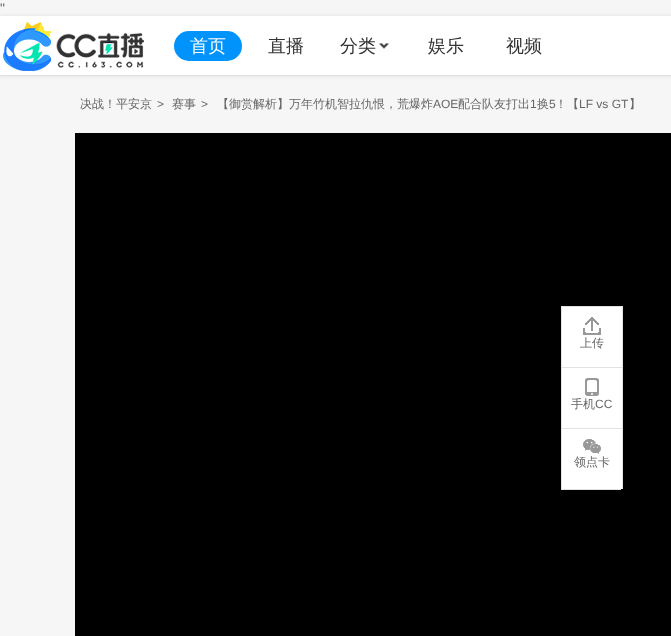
<!DOCTYPE html>
<meta charset="utf-8">
<style>body { margin: 0 } canvas { display: block }</style>
<canvas id="canvas" width="671" height="636"></canvas>
<script type="module">
  const canvas = document.getElementById("canvas");
  const ctx = canvas.getContext("2d");
  ctx.miterLimit = 4;
  ctx.fontKerning = "normal";
  async function loadImage(src) {
    const img = new Image();
    img.src = src;
    await img.decode();
    return img;
  }

  ctx.fillStyle = "#f6f6f6";
  ctx.fillRect(0, 0, 671, 636);
  ctx.font = "14px Liberation Sans";
  ctx.fillStyle = "#666666";
  ctx.fillText("\"", 0, 13);
  ctx.fillStyle = "rgba(0, 0, 0, 0.09)";
  ctx.filter = "blur(2px)";
  ctx.beginPath();
  ctx.rect(0, 16, 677, 60);
  ctx.fill();
  ctx.filter = "none";
  ctx.fillStyle = "#ffffff";
  ctx.fillRect(0, 16, 671, 59);
  ctx.fillStyle = "#e2e1e2";
  ctx.fillRect(0, 75, 671, 1);
  ctx.drawImage(await loadImage("img1.png"), 3, 22, 141, 49);
  ctx.fillStyle = "#0093fb";
  ctx.beginPath();
  ctx.roundRect(174, 31, 68, 30, 15);
  ctx.fill();
  ctx.font = "500 18px WenQuanYi Zen Hei";
  ctx.fillStyle = "#ffffff";
  ctx.fillText("首页", 190, 52);
  ctx.fillStyle = "#333333";
  ctx.fillText("直播", 268, 52);
  ctx.fillText("分类", 340, 52);
  ctx.drawImage(await loadImage("img2.png"), 379, 43, 10, 6);
  ctx.fillText("娱乐", 428, 52);
  ctx.fillText("视频", 506, 52);
  ctx.font = "500 12px WenQuanYi Zen Hei";
  ctx.fillStyle = "#666666";
  ctx.fillText("决战！平安京", 80, 108);
  ctx.font = "12px Liberation Sans";
  ctx.fillText(">", 157, 108);
  ctx.font = "500 12px WenQuanYi Zen Hei";
  ctx.fillText("赛事", 172, 108);
  ctx.font = "12px Liberation Sans";
  ctx.fillText(">", 201, 108);
  ctx.font = "500 12px WenQuanYi Zen Hei";
  ctx.fillText("【御赏解析】万年竹机智拉仇恨，荒爆炸", 217, 108);
  ctx.font = "12px Liberation Sans";
  ctx.fillText("AOE", 433, 108);
  ctx.font = "500 12px WenQuanYi Zen Hei";
  ctx.fillText("配合队友打出", 458, 108);
  ctx.font = "12px Liberation Sans";
  ctx.fillText("1", 530, 108);
  ctx.font = "500 12px WenQuanYi Zen Hei";
  ctx.fillText("换", 537, 108);
  ctx.font = "12px Liberation Sans";
  ctx.fillText("5", 549, 108);
  ctx.font = "500 12px WenQuanYi Zen Hei";
  ctx.fillText("！【", 555, 108);
  ctx.font = "12px Liberation Sans";
  ctx.fillText("LF vs GT", 579, 108);
  ctx.font = "500 12px WenQuanYi Zen Hei";
  ctx.fillText("】", 629, 108);
  ctx.fillStyle = "#000000";
  ctx.fillRect(75, 133, 596, 503);
  ctx.fillStyle = "#e2e2e2";
  ctx.fillRect(561, 489, 60, 1);
  ctx.fillStyle = "#ffffff";
  ctx.fillRect(562, 307, 60, 60);
  ctx.fillStyle = "#e2e2e2";
  ctx.fillRect(561, 306, 62, 1);
  ctx.fillRect(622, 306, 1, 61);
  ctx.fillRect(561, 306, 1, 61);
  ctx.drawImage(await loadImage("img3.png"), 583, 317, 18, 18);
  ctx.fillStyle = "#666666";
  ctx.fillText("上传", 580, 347);
  ctx.fillStyle = "#ffffff";
  ctx.fillRect(562, 368, 60, 60);
  ctx.fillStyle = "#e2e2e2";
  ctx.fillRect(561, 367, 62, 1);
  ctx.fillRect(622, 367, 1, 61);
  ctx.fillRect(561, 367, 1, 61);
  ctx.drawImage(await loadImage("img4.png"), 585, 378, 14, 18);
  ctx.fillStyle = "#666666";
  ctx.fillText("手机", 571, 408);
  ctx.font = "12px Liberation Sans";
  ctx.fillText("CC", 595, 408);
  ctx.fillStyle = "#ffffff";
  ctx.fillRect(562, 429, 60, 60);
  ctx.fillStyle = "#e2e2e2";
  ctx.fillRect(561, 428, 62, 1);
  ctx.fillRect(622, 428, 1, 61);
  ctx.fillRect(561, 428, 1, 61);
  ctx.drawImage(await loadImage("img5.png"), 583, 439, 18, 15);
  ctx.font = "500 12px WenQuanYi Zen Hei";
  ctx.fillStyle = "#666666";
  ctx.fillText("领点卡", 574, 466);
</script>
